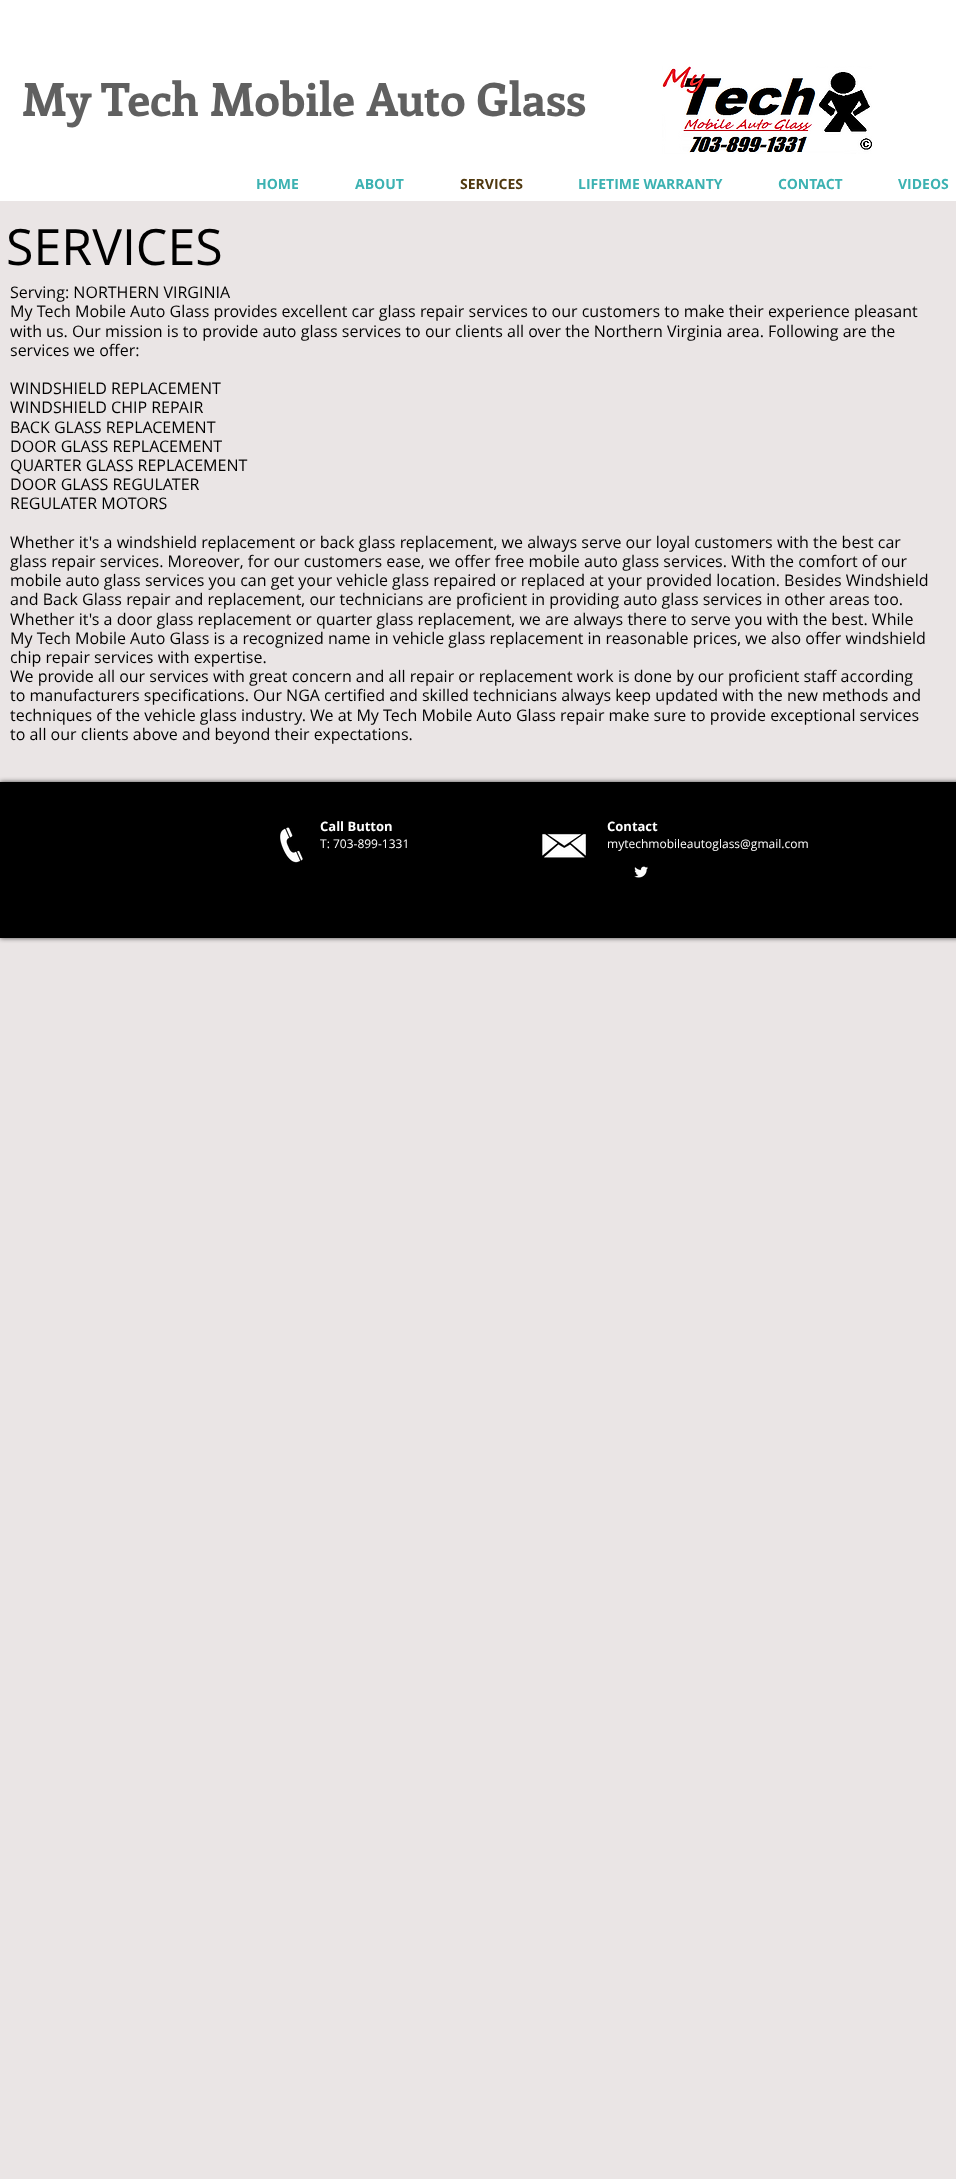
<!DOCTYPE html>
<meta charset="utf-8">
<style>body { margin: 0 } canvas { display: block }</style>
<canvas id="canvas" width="956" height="2179"></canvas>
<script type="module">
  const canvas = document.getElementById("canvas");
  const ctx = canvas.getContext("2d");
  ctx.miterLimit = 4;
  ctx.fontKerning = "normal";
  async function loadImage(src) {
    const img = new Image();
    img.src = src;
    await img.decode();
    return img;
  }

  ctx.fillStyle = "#eae5e5";
  ctx.fillRect(0, 0, 956, 2179);
  ctx.fillStyle = "#ffffff";
  ctx.fillRect(0, 0, 956, 201);
  ctx.font = "bold 46px Enriqueta";
  ctx.fillStyle = "#606060";
  ctx.fillText("My Tech Mobile Auto Glass", 22, 116);
  ctx.drawImage(await loadImage("img1.png"), 662, 66, 210, 88);
  ctx.font = "bold 14px Open Sans";
  ctx.fillStyle = "#3cb2b2";
  ctx.fillText("HOME", 256, 189);
  ctx.fillText("ABOUT", 355, 189);
  ctx.fillStyle = "#50390f";
  ctx.fillText("SERVICES", 460, 189);
  ctx.fillStyle = "#3cb2b2";
  ctx.fillText("LIFETIME WARRANTY", 578, 189);
  ctx.fillText("CONTACT", 778, 189);
  ctx.fillText("VIDEOS", 898, 189);
  ctx.font = "50px Open Sans";
  ctx.fillStyle = "#000000";
  ctx.fillText("SERVICES", 6, 265);
  ctx.font = "16px Open Sans";
  ctx.fillText("Serving: NORTHERN VIRGINIA", 10, 298);
  ctx.fillText("My Tech Mobile Auto Glass provides excellent car glass repair services to our customers to make their experience pleasant", 10, 317);
  ctx.fillText("with us. Our mission is to provide auto glass services to our clients all over the Northern Virginia area. Following are the", 10, 337);
  ctx.fillText("services we offer:", 10, 356);
  ctx.fillText("WINDSHIELD REPLACEMENT", 10, 394);
  ctx.fillText("WINDSHIELD CHIP REPAIR", 10, 413);
  ctx.fillText("BACK GLASS REPLACEMENT", 10, 433);
  ctx.fillText("DOOR GLASS REPLACEMENT", 10, 452);
  ctx.fillText("QUARTER GLASS REPLACEMENT", 10, 471);
  ctx.fillText("DOOR GLASS REGULATER", 10, 490);
  ctx.fillText("REGULATER MOTORS", 10, 509);
  ctx.fillText("Whether it's a windshield replacement or back glass replacement, we always serve our loyal customers with the best car", 10, 548);
  ctx.fillText("glass repair services. Moreover, for our customers ease, we offer free mobile auto glass services. With the comfort of our", 10, 567);
  ctx.fillText("mobile auto glass services you can get your vehicle glass repaired or replaced at your provided location. Besides Windshield", 10, 586);
  ctx.fillText("and Back Glass repair and replacement, our technicians are proficient in providing auto glass services in other areas too.", 10, 605);
  ctx.fillText("Whether it's a door glass replacement or quarter glass replacement, we are always there to serve you with the best. While", 10, 625);
  ctx.fillText("My Tech Mobile Auto Glass is a recognized name in vehicle glass replacement in reasonable prices, we also offer windshield", 10, 644);
  ctx.fillText("chip repair services with expertise.", 10, 663);
  ctx.fillText("We provide all our services with great concern and all repair or replacement work is done by our proficient staff according", 10, 682);
  ctx.fillText("to manufacturers specifications. Our NGA certified and skilled technicians always keep updated with the new methods and", 10, 701);
  ctx.fillText("techniques of the vehicle glass industry. We at My Tech Mobile Auto Glass repair make sure to provide exceptional services", 10, 721);
  ctx.fillText("to all our clients above and beyond their expectations.", 10, 740);
  ctx.fillStyle = "rgba(0, 0, 0, 0.7)";
  ctx.filter = "blur(2.5px)";
  ctx.beginPath();
  ctx.rect(0, 782, 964, 156);
  ctx.fill();
  ctx.filter = "none";
  ctx.fillStyle = "#000000";
  ctx.fillRect(0, 782, 956, 156);
  ctx.drawImage(await loadImage("img2.png"), 280, 827, 23, 36);
  ctx.font = "bold 13px Open Sans";
  ctx.fillStyle = "#ffffff";
  ctx.fillText("Call Button", 320, 831);
  ctx.font = "12px Open Sans";
  ctx.fillText("T: 703-899-1331", 320, 848);
  ctx.drawImage(await loadImage("img3.png"), 542, 833, 44, 25);
  ctx.font = "bold 13px Open Sans";
  ctx.fillText("Contact", 607, 831);
  ctx.font = "12px Open Sans";
  ctx.fillText("mytechmobileautoglass@gmail.com", 607, 848);
  ctx.drawImage(await loadImage("img4.png"), 634, 866, 14, 12);
</script>
